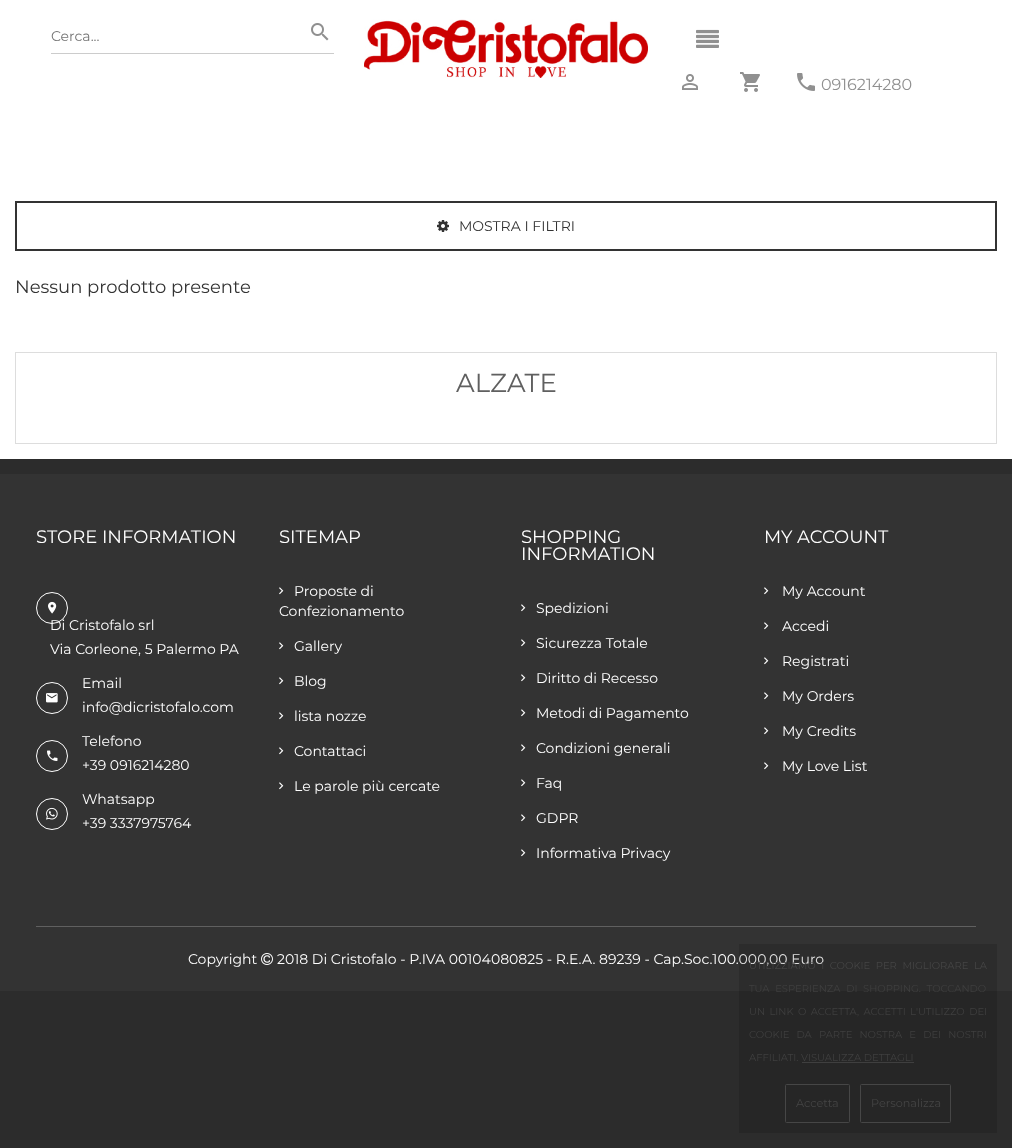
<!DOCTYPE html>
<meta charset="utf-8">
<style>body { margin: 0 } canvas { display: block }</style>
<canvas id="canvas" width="1012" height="1148"></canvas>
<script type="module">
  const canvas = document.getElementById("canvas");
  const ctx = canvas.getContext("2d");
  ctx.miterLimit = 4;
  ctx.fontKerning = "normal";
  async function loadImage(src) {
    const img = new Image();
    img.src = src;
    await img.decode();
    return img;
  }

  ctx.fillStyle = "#2c2c2c";
  ctx.fillRect(0, 0, 1012, 1148);
  ctx.fillStyle = "#ffffff";
  ctx.fillRect(0, 0, 1012, 459);
  ctx.fillStyle = "#cccccc";
  ctx.fillRect(51, 53, 283, 1);
  ctx.font = "14px Montserrat";
  ctx.fillStyle = "#757575";
  ctx.fillText("Cerca...", 51, 41);
  ctx.drawImage(await loadImage("img1.png"), 311, 23, 18, 18);
  ctx.drawImage(await loadImage("img2.png"), 364, 19, 284, 59);
  ctx.drawImage(await loadImage("img3.png"), 696, 29, 23, 19);
  ctx.drawImage(await loadImage("img4.png"), 682, 74, 16, 16);
  ctx.drawImage(await loadImage("img5.png"), 740, 72, 20, 20);
  ctx.drawImage(await loadImage("img6.png"), 797, 73, 18, 18);
  ctx.font = "16px Montserrat";
  ctx.fillStyle = "#909090";
  ctx.fillText("0916214280", 821, 90);
  ctx.strokeStyle = "#333333";
  ctx.lineWidth = 2;
  ctx.strokeRect(16, 202, 980, 48);
  ctx.drawImage(await loadImage("img7.png"), 437, 220, 12, 12);
  ctx.font = "14px Montserrat";
  ctx.fillStyle = "#333333";
  ctx.fillText("MOSTRA I FILTRI", 459, 231);
  ctx.font = "18px Montserrat";
  ctx.fillText("Nessun prodotto presente", 15, 293);
  ctx.strokeStyle = "#dddddd";
  ctx.lineWidth = 1;
  ctx.strokeRect(15.5, 352.5, 981, 91);
  ctx.font = "26px Montserrat";
  ctx.fillStyle = "#606060";
  ctx.fillText("ALZATE", 456, 392);
  ctx.fillStyle = "#333333";
  ctx.fillRect(0, 474, 1012, 517);
  ctx.font = "18px Montserrat";
  ctx.fillStyle = "#ffffff";
  ctx.fillText("STORE INFORMATION", 36, 543);
  ctx.beginPath();
  ctx.arc(52, 608, 15.5, 0, Math.PI * 2);
  ctx.strokeStyle = "#ffffff";
  ctx.stroke();
  ctx.drawImage(await loadImage("img8.png"), 48, 601, 9, 13);
  ctx.font = "14px Montserrat";
  ctx.fillText("Di Cristofalo srl", 50, 630);
  ctx.fillText("Via Corleone, 5 Palermo PA", 50, 654);
  ctx.beginPath();
  ctx.arc(52, 698, 15.5, 0, Math.PI * 2);
  ctx.stroke();
  ctx.drawImage(await loadImage("img9.png"), 46, 693, 12, 10);
  ctx.fillText("Email", 82, 688);
  ctx.fillText("info@dicristofalo.com", 82, 712);
  ctx.beginPath();
  ctx.arc(52, 756, 15.5, 0, Math.PI * 2);
  ctx.stroke();
  ctx.drawImage(await loadImage("img10.png"), 47, 750, 11, 11);
  ctx.fillText("Telefono", 82, 746);
  ctx.fillText("+39 0916214280", 82, 770);
  ctx.beginPath();
  ctx.arc(52, 814, 15.5, 0, Math.PI * 2);
  ctx.stroke();
  ctx.drawImage(await loadImage("img11.png"), 46, 807, 12, 13);
  ctx.fillText("Whatsapp", 82, 804);
  ctx.fillText("+39 3337975764", 82, 828);
  ctx.font = "18px Montserrat";
  ctx.fillText("SITEMAP", 279, 543);
  ctx.drawImage(await loadImage("img12.png"), 279, 587, 5, 8);
  ctx.font = "14px Montserrat";
  ctx.fillText("Proposte di", 294, 596);
  ctx.fillText("Confezionamento", 279, 616);
  ctx.drawImage(await loadImage("img12.png"), 279, 642, 5, 8);
  ctx.fillText("Gallery", 294, 651);
  ctx.drawImage(await loadImage("img12.png"), 279, 677, 5, 8);
  ctx.fillText("Blog", 294, 686);
  ctx.drawImage(await loadImage("img12.png"), 279, 712, 5, 8);
  ctx.fillText("lista nozze", 294, 721);
  ctx.drawImage(await loadImage("img12.png"), 279, 747, 5, 8);
  ctx.fillText("Contattaci", 294, 756);
  ctx.drawImage(await loadImage("img12.png"), 279, 782, 5, 8);
  ctx.fillText("Le parole più cercate", 294, 791);
  ctx.font = "18px Montserrat";
  ctx.fillText("SHOPPING", 521, 543);
  ctx.fillText("INFORMATION", 521, 560);
  ctx.drawImage(await loadImage("img12.png"), 521, 604, 5, 8);
  ctx.font = "14px Montserrat";
  ctx.fillText("Spedizioni", 536, 613);
  ctx.drawImage(await loadImage("img12.png"), 521, 639, 5, 8);
  ctx.fillText("Sicurezza Totale", 536, 648);
  ctx.drawImage(await loadImage("img12.png"), 521, 674, 5, 8);
  ctx.fillText("Diritto di Recesso", 536, 683);
  ctx.drawImage(await loadImage("img12.png"), 521, 709, 5, 8);
  ctx.fillText("Metodi di Pagamento", 536, 718);
  ctx.drawImage(await loadImage("img12.png"), 521, 744, 5, 8);
  ctx.fillText("Condizioni generali", 536, 753);
  ctx.drawImage(await loadImage("img12.png"), 521, 779, 5, 8);
  ctx.fillText("Faq", 536, 788);
  ctx.drawImage(await loadImage("img12.png"), 521, 814, 5, 8);
  ctx.fillText("GDPR", 536, 823);
  ctx.drawImage(await loadImage("img12.png"), 521, 849, 5, 8);
  ctx.fillText("Informativa Privacy", 536, 858);
  ctx.font = "18px Montserrat";
  ctx.fillText("MY ACCOUNT", 764, 543);
  ctx.drawImage(await loadImage("img12.png"), 764, 587, 5, 8);
  ctx.font = "14px Montserrat";
  ctx.fillText("My Account", 782, 596);
  ctx.drawImage(await loadImage("img12.png"), 764, 622, 5, 8);
  ctx.fillText("Accedi", 782, 631);
  ctx.drawImage(await loadImage("img12.png"), 764, 657, 5, 8);
  ctx.fillText("Registrati", 782, 666);
  ctx.drawImage(await loadImage("img12.png"), 764, 692, 5, 8);
  ctx.fillText("My Orders", 782, 701);
  ctx.drawImage(await loadImage("img12.png"), 764, 727, 5, 8);
  ctx.fillText("My Credits", 782, 736);
  ctx.drawImage(await loadImage("img12.png"), 764, 762, 5, 8);
  ctx.fillText("My Love List", 782, 771);
  ctx.fillStyle = "#606060";
  ctx.fillRect(36, 926, 940, 1);
  ctx.fillStyle = "#ffffff";
  ctx.fillText("Copyright", 188, 964);
  ctx.drawImage(await loadImage("img13.png"), 261, 953, 12, 12);
  ctx.fillText("2018 Di Cristofalo - P.IVA 00104080825 - R.E.A. 89239 - Cap.Soc.100.000,00 Euro", 277, 964);
  ctx.fillStyle = "rgba(0, 0, 0, 0.12)";
  ctx.fillRect(739, 944, 258, 189);
  ctx.wordSpacing = "3px";
  ctx.font = "10px Montserrat";
  ctx.fillStyle = "#454545";
  ctx.fillText("UTILIZZIAMO I COOKIE PER MIGLIORARE LA", 749, 969);
  ctx.fillStyle = "#3f3f3f";
  ctx.fillText("TUA ESPERIENZA DI SHOPPING. TOCCANDO", 749, 992);
  ctx.wordSpacing = "1.75px";
  ctx.fillText("UN LINK O ACCETTA, ACCETTI L'UTILIZZO DEI", 749, 1015);
  ctx.wordSpacing = "4.5px";
  ctx.fillText("COOKIE DA PARTE NOSTRA E DEI NOSTRI", 749, 1038);
  ctx.wordSpacing = "0px";
  ctx.fillText("AFFILIATI. VISUALIZZA DETTAGLI", 749, 1061);
  ctx.fillRect(802, 1062, 112, 1);
  ctx.beginPath();
  ctx.roundRect(785.5, 1084.5, 64, 38, 1);
  ctx.strokeStyle = "#464646";
  ctx.stroke();
  ctx.font = "11.25px Montserrat";
  ctx.fillStyle = "#454545";
  ctx.fillText("Accetta", 796, 1107);
  ctx.beginPath();
  ctx.roundRect(860.5, 1084.5, 90, 38, 1);
  ctx.stroke();
  ctx.fillText("Personalizza", 871, 1107);
</script>
